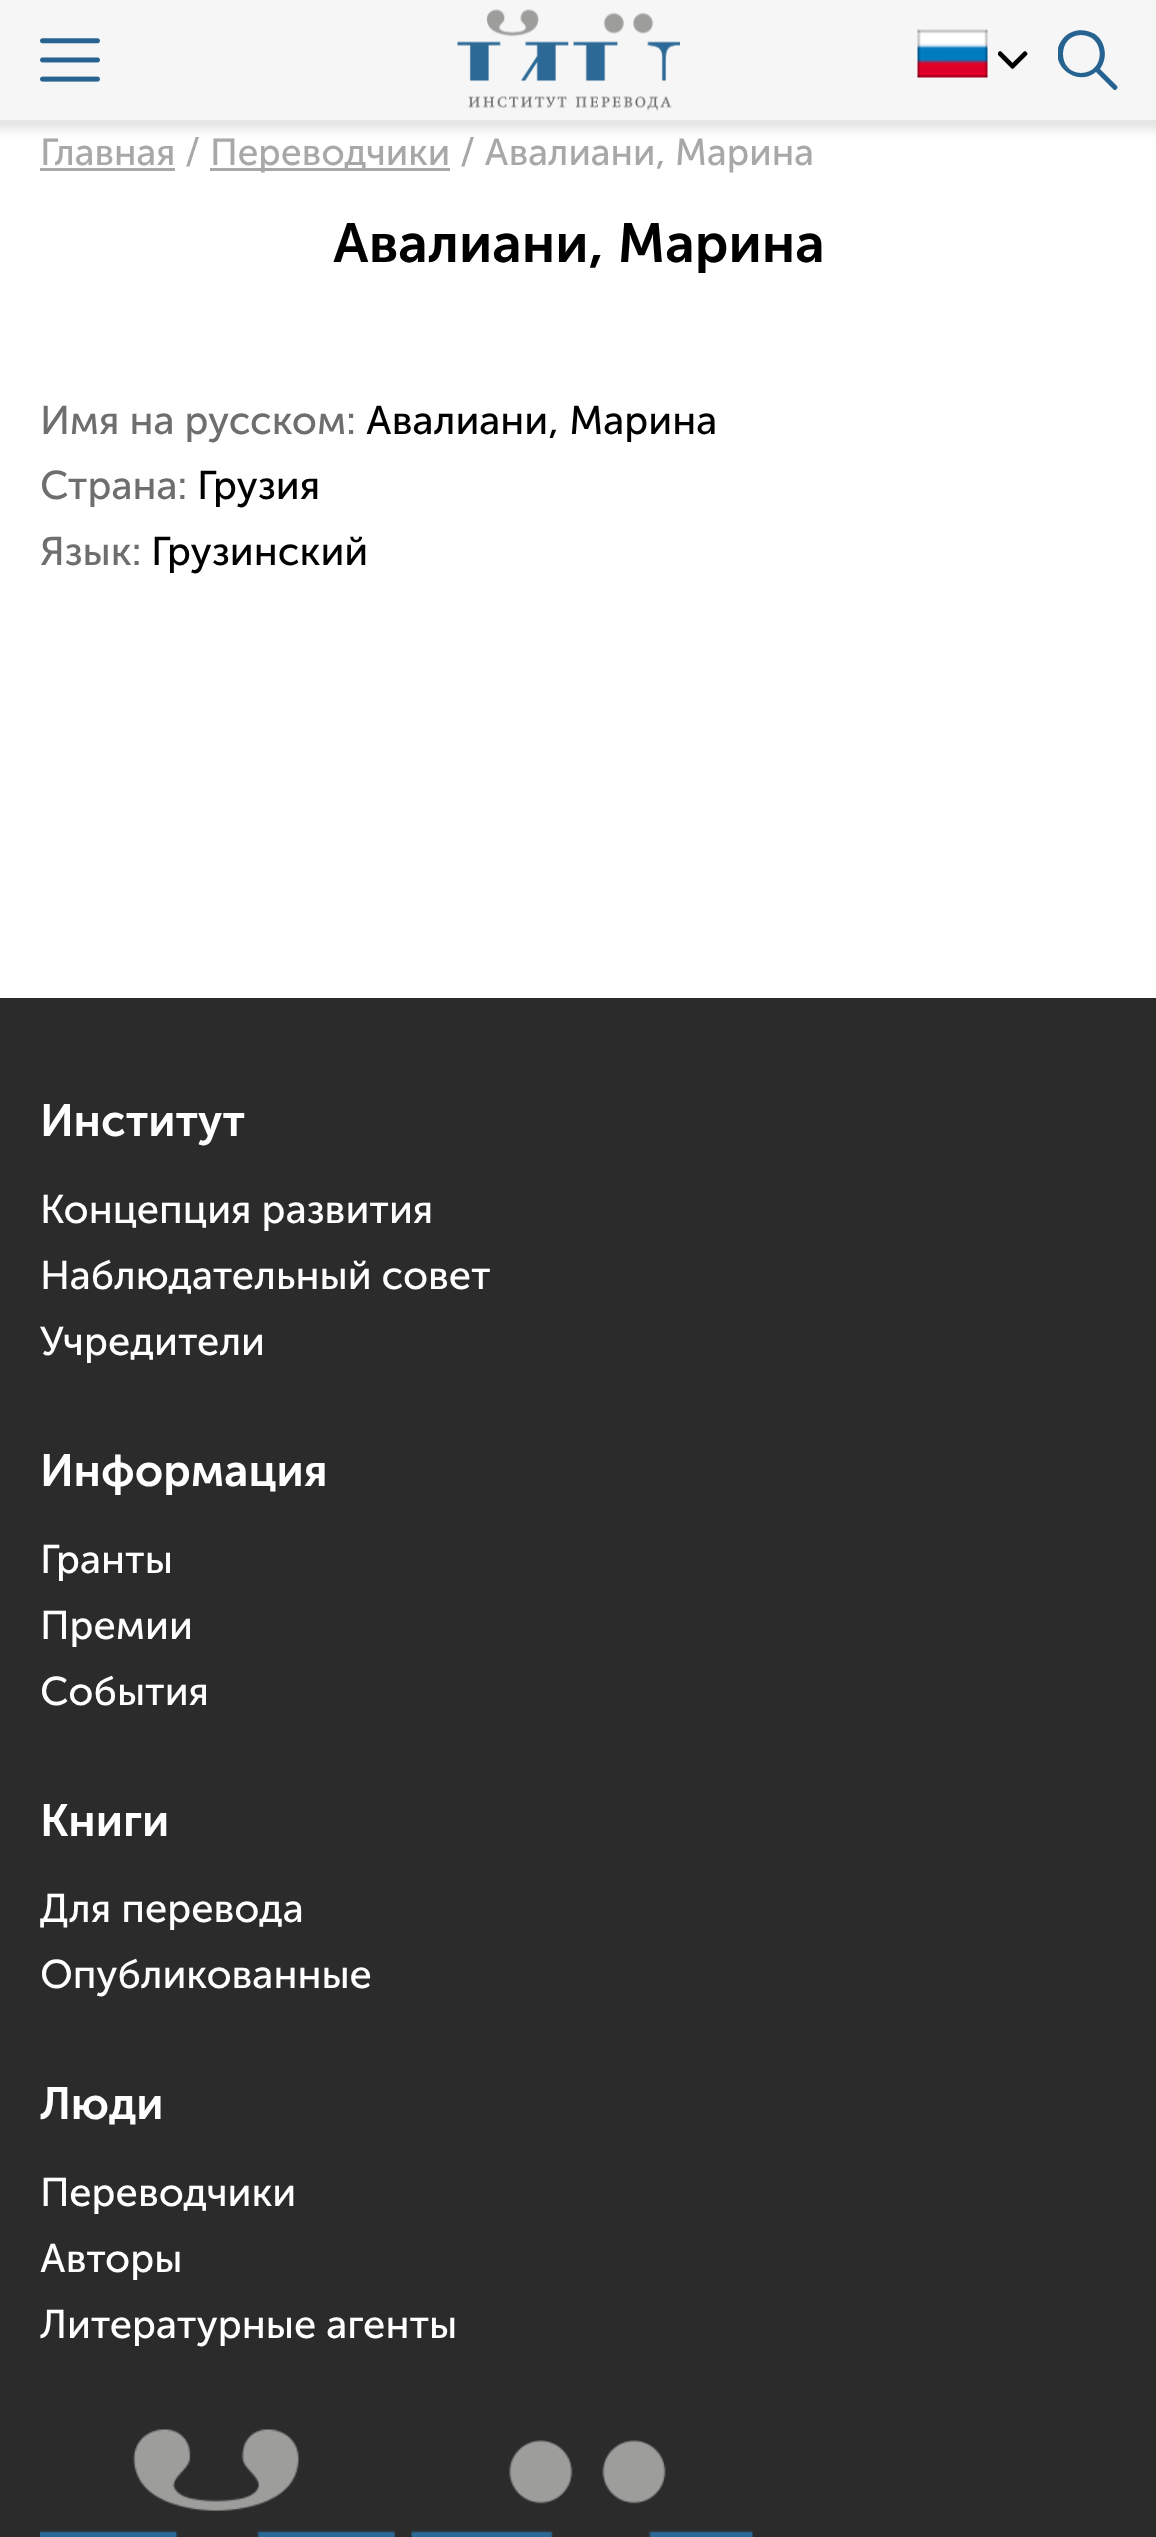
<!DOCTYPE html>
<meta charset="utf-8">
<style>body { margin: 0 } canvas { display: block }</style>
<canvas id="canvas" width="1156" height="2537"></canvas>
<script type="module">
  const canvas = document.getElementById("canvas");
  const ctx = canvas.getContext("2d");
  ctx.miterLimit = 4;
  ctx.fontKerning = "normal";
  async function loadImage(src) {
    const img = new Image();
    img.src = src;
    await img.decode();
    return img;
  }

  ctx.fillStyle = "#ffffff";
  ctx.fillRect(0, 0, 1156, 2537);
  ctx.fillStyle = "rgba(0, 0, 0, 0.1)";
  ctx.filter = "blur(5px)";
  ctx.beginPath();
  ctx.rect(-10, -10, 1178, 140);
  ctx.fill();
  ctx.filter = "none";
  ctx.fillStyle = "#f6f6f6";
  ctx.fillRect(0, 0, 1156, 120);
  ctx.drawImage(await loadImage("img1.png"), 40, 38, 60, 44);
  ctx.drawImage(await loadImage("img2.png"), 457, 9, 223, 102);
  ctx.drawImage(await loadImage("img3.png"), 917, 29, 71, 49);
  ctx.drawImage(await loadImage("img4.png"), 998, 51, 30, 18);
  ctx.save();
  ctx.beginPath();
  ctx.rect(1058, 30, 60, 60);
  ctx.clip();
  ctx.fillStyle = "#266390";
  ctx.beginPath();
  ctx.moveTo(1117, 86);
  ctx.lineTo(1100, 69);
  ctx.bezierCurveTo(1108, 58, 1106, 42, 1095, 34);
  ctx.bezierCurveTo(1088, 30, 1079, 29, 1072, 32);
  ctx.bezierCurveTo(1066, 34, 1062, 39, 1059, 45);
  ctx.bezierCurveTo(1050, 67, 1078, 87, 1096, 72);
  ctx.lineTo(1114, 90);
  ctx.bezierCurveTo(1115, 91, 1119, 88, 1117, 86);
  ctx.closePath();
  ctx.moveTo(1081, 73);
  ctx.bezierCurveTo(1057, 73, 1057, 35, 1081, 35);
  ctx.bezierCurveTo(1106, 35, 1106, 73, 1081, 73);
  ctx.closePath();
  ctx.fill();
  ctx.restore();
  ctx.font = "37.5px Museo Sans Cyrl";
  ctx.fillStyle = "#a8a8a8";
  ctx.fillText("Главная /", 40, 165);
  ctx.fillRect(40, 168, 135, 3);
  ctx.fillRect(210, 168, 240, 3);
  ctx.fillText("Переводчики / Авалиани, Марина", 210, 165);
  ctx.font = "600 55px Museo Sans Cyrl";
  ctx.fillStyle = "#000000";
  ctx.fillText("Авалиани, Марина", 333, 262);
  ctx.font = "40px Museo Sans Cyrl";
  ctx.fillStyle = "#6e6e6e";
  ctx.fillText("Имя на русском:", 40, 434);
  ctx.fillStyle = "#000000";
  ctx.fillText("Авалиани, Марина", 366, 434);
  ctx.fillStyle = "#6e6e6e";
  ctx.fillText("Страна:", 40, 499);
  ctx.fillStyle = "#000000";
  ctx.fillText("Грузия", 197, 499);
  ctx.fillStyle = "#6e6e6e";
  ctx.fillText("Язык:", 40, 565);
  ctx.fillStyle = "#000000";
  ctx.fillText("Грузинский", 151, 565);
  ctx.fillStyle = "#2c2b2b";
  ctx.fillRect(0, 998, 1156, 1539);
  ctx.font = "600 45px Museo Sans Cyrl";
  ctx.fillStyle = "#ffffff";
  ctx.fillText("Институт", 40, 1136);
  ctx.font = "40px Museo Sans Cyrl";
  ctx.fillText("Концепция развития", 40, 1223);
  ctx.fillText("Наблюдательный совет", 40, 1289);
  ctx.fillText("Учредители", 40, 1355);
  ctx.font = "600 45px Museo Sans Cyrl";
  ctx.fillText("Информация", 40, 1486);
  ctx.font = "40px Museo Sans Cyrl";
  ctx.fillText("Гранты", 40, 1573);
  ctx.fillText("Премии", 40, 1639);
  ctx.fillText("События", 40, 1705);
  ctx.font = "600 45px Museo Sans Cyrl";
  ctx.fillText("Книги", 40, 1836);
  ctx.font = "40px Museo Sans Cyrl";
  ctx.fillText("Для перевода", 40, 1922);
  ctx.fillText("Опубликованные", 40, 1988);
  ctx.font = "600 45px Museo Sans Cyrl";
  ctx.fillText("Люди", 40, 2119);
  ctx.font = "40px Museo Sans Cyrl";
  ctx.fillText("Переводчики", 40, 2206);
  ctx.fillText("Авторы", 40, 2272);
  ctx.fillText("Литературные агенты", 40, 2338);
  ctx.drawImage(await loadImage("img5.png"), 40, 2429, 713, 108);
</script>
